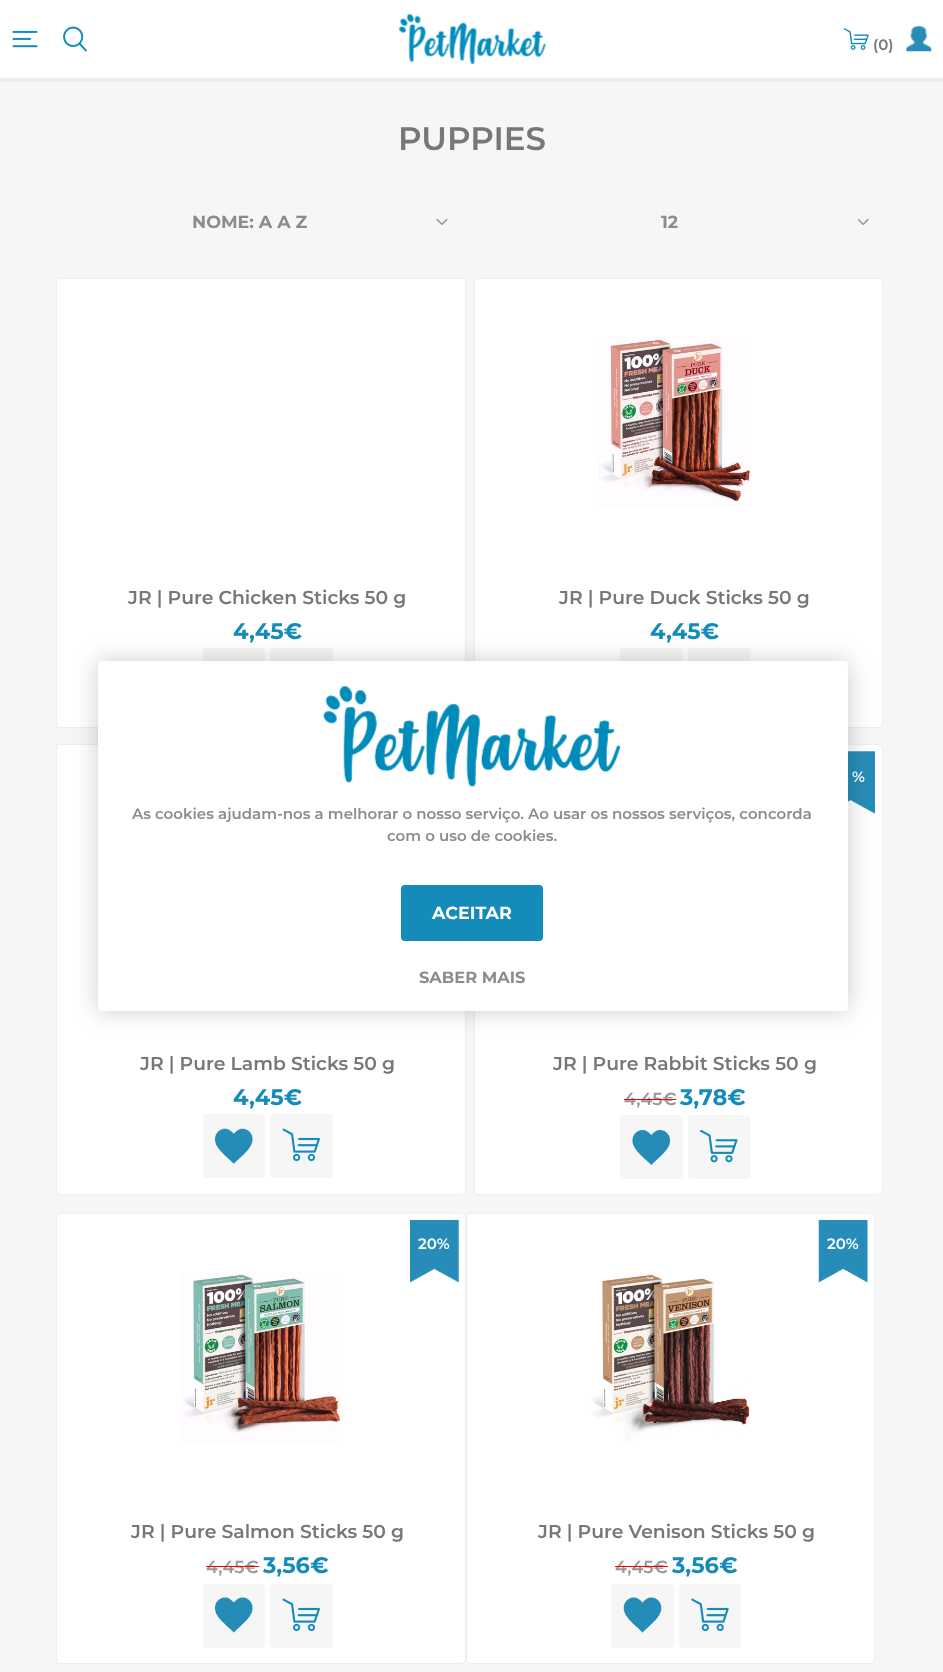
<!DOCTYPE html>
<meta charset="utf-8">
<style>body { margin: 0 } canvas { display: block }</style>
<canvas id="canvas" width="943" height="1672"></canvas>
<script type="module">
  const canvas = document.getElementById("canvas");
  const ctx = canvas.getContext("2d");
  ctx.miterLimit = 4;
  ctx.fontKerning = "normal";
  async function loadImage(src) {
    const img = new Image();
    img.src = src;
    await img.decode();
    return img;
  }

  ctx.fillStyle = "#ffffff";
  ctx.fillRect(0, 0, 943, 1672);
  ctx.fillStyle = "#eeeeee";
  ctx.fillRect(0, 78, 943, 4);
  ctx.drawImage(await loadImage("img1.png"), 12, 30, 26, 18);
  ctx.drawImage(await loadImage("img2.png"), 63, 26, 24, 26);
  ctx.drawImage(await loadImage("img3.png"), 398, 13, 148, 51);
  ctx.drawImage(await loadImage("img4.png"), 843, 28, 26, 22);
  ctx.font = "600 15px Montserrat";
  ctx.fillStyle = "#777777";
  ctx.fillText("(0)", 873, 50);
  ctx.drawImage(await loadImage("img5.png"), 906, 26, 26, 26);
  ctx.fillStyle = "#f6f6f6";
  ctx.fillRect(0, 82, 943, 1590);
  ctx.font = "600 32.5px Montserrat";
  ctx.fillStyle = "#777777";
  ctx.fillText("PUPPIES", 398, 150);
  ctx.drawImage(await loadImage("img6.png"), 436, 219, 12, 6);
  ctx.font = "bold 17.5px Montserrat";
  ctx.fillStyle = "#8c8c8c";
  ctx.fillText("NOME: A A Z", 192, 228);
  ctx.drawImage(await loadImage("img7.png"), 858, 219, 11, 6);
  ctx.fillText("12", 661, 228);
  ctx.fillStyle = "#ffffff";
  ctx.beginPath();
  ctx.roundRect(56.5, 278.5, 409, 449, 3.5);
  ctx.fill();
  ctx.strokeStyle = "#eeeeee";
  ctx.stroke();
  ctx.beginPath();
  ctx.roundRect(58, 279, 407, 287, [2.5, 2.5, 0, 0]);
  ctx.fill();
  ctx.font = "600 18.75px Montserrat";
  ctx.fillStyle = "#777777";
  ctx.fillText("JR | Pure Chicken Sticks 50 g", 128, 604);
  ctx.font = "bold 22.5px Montserrat";
  ctx.fillStyle = "#158bba";
  ctx.fillText("4,45€", 233, 639);
  ctx.fillStyle = "#f6f6f6";
  ctx.beginPath();
  ctx.roundRect(203, 648, 62, 63, 4);
  ctx.fill();
  ctx.beginPath();
  ctx.roundRect(270, 648, 63, 63, 4);
  ctx.fill();
  ctx.fillStyle = "#ffffff";
  ctx.beginPath();
  ctx.roundRect(474.5, 278.5, 408, 449, 3.5);
  ctx.fill();
  ctx.stroke();
  ctx.beginPath();
  ctx.roundRect(475, 279, 406, 287, [2.5, 2.5, 0, 0]);
  ctx.fill();
  ctx.drawImage(await loadImage("img8.png"), 598, 337, 154, 171);
  ctx.font = "600 18.75px Montserrat";
  ctx.fillStyle = "#777777";
  ctx.fillText("JR | Pure Duck Sticks 50 g", 559, 604);
  ctx.font = "bold 22.5px Montserrat";
  ctx.fillStyle = "#158bba";
  ctx.fillText("4,45€", 650, 639);
  ctx.fillStyle = "#f6f6f6";
  ctx.beginPath();
  ctx.roundRect(620, 648, 63, 63, 4);
  ctx.fill();
  ctx.beginPath();
  ctx.roundRect(688, 648, 62, 63, 4);
  ctx.fill();
  ctx.fillStyle = "#ffffff";
  ctx.beginPath();
  ctx.roundRect(56.5, 744.5, 409, 450, 3.5);
  ctx.fill();
  ctx.stroke();
  ctx.beginPath();
  ctx.roundRect(58, 745, 407, 288, [2.5, 2.5, 0, 0]);
  ctx.fill();
  ctx.font = "600 18.75px Montserrat";
  ctx.fillStyle = "#777777";
  ctx.fillText("JR | Pure Lamb Sticks 50 g", 140, 1070);
  ctx.font = "bold 22.5px Montserrat";
  ctx.fillStyle = "#158bba";
  ctx.fillText("4,45€", 233, 1105);
  ctx.fillStyle = "#f6f6f6";
  ctx.beginPath();
  ctx.roundRect(203, 1114, 62, 64, 4);
  ctx.fill();
  ctx.drawImage(await loadImage("img9.png"), 215, 1128, 38, 36);
  ctx.beginPath();
  ctx.roundRect(270, 1114, 63, 64, 4);
  ctx.fill();
  ctx.drawImage(await loadImage("img10.png"), 282, 1128, 38, 34);
  ctx.fillStyle = "#ffffff";
  ctx.beginPath();
  ctx.roundRect(474.5, 744.5, 408, 450, 3.5);
  ctx.fill();
  ctx.stroke();
  ctx.beginPath();
  ctx.roundRect(475, 745, 406, 288, [2.5, 2.5, 0, 0]);
  ctx.fill();
  ctx.drawImage(await loadImage("img11.png"), 848, 751, 27, 63);
  ctx.font = "600 15px Montserrat";
  ctx.fillText("%", 852, 782);
  ctx.font = "600 18.75px Montserrat";
  ctx.fillStyle = "#777777";
  ctx.fillText("JR | Pure Rabbit Sticks 50 g", 553, 1070);
  ctx.font = "600 17.5px Montserrat";
  ctx.fillStyle = "#999999";
  ctx.fillText("4,45€", 624, 1105);
  ctx.fillStyle = "#ff0000";
  ctx.fillRect(624, 1099, 52, 1);
  ctx.font = "bold 22.5px Montserrat";
  ctx.fillStyle = "#158bba";
  ctx.fillText("3,78€", 680, 1105);
  ctx.fillStyle = "#f6f6f6";
  ctx.beginPath();
  ctx.roundRect(620, 1115, 63, 64, 4);
  ctx.fill();
  ctx.drawImage(await loadImage("img12.png"), 632, 1130, 38, 35);
  ctx.beginPath();
  ctx.roundRect(688, 1115, 62, 64, 4);
  ctx.fill();
  ctx.drawImage(await loadImage("img13.png"), 700, 1129, 38, 34);
  ctx.fillStyle = "#ffffff";
  ctx.beginPath();
  ctx.roundRect(56.5, 1213.5, 409, 450, 3.5);
  ctx.fill();
  ctx.stroke();
  ctx.beginPath();
  ctx.roundRect(58, 1214, 407, 287, [2.5, 2.5, 0, 0]);
  ctx.fill();
  ctx.drawImage(await loadImage("img14.png"), 180, 1272, 163, 171);
  ctx.drawImage(await loadImage("img15.png"), 410, 1220, 49, 63);
  ctx.font = "600 15px Montserrat";
  ctx.fillText("20%", 418, 1249);
  ctx.font = "600 18.75px Montserrat";
  ctx.fillStyle = "#777777";
  ctx.fillText("JR | Pure Salmon Sticks 50 g", 131, 1538);
  ctx.font = "600 17.5px Montserrat";
  ctx.fillStyle = "#999999";
  ctx.fillText("4,45€", 206, 1573);
  ctx.fillStyle = "#ff0000";
  ctx.fillRect(206, 1566, 53, 1);
  ctx.font = "bold 22.5px Montserrat";
  ctx.fillStyle = "#158bba";
  ctx.fillText("3,56€", 263, 1573);
  ctx.fillStyle = "#f6f6f6";
  ctx.beginPath();
  ctx.roundRect(203, 1584, 62, 64, 4);
  ctx.fill();
  ctx.drawImage(await loadImage("img16.png"), 215, 1597, 38, 36);
  ctx.beginPath();
  ctx.roundRect(270, 1584, 63, 64, 4);
  ctx.fill();
  ctx.drawImage(await loadImage("img10.png"), 282, 1598, 38, 34);
  ctx.fillStyle = "#ffffff";
  ctx.beginPath();
  ctx.roundRect(466.5, 1213.5, 408, 450, 3.5);
  ctx.fill();
  ctx.stroke();
  ctx.beginPath();
  ctx.roundRect(468, 1214, 406, 287, [2.5, 2.5, 0, 0]);
  ctx.fill();
  ctx.drawImage(await loadImage("img17.png"), 590, 1274, 160, 169);
  ctx.drawImage(await loadImage("img18.png"), 818, 1220, 50, 63);
  ctx.font = "600 15px Montserrat";
  ctx.fillText("20%", 827, 1249);
  ctx.font = "600 18.75px Montserrat";
  ctx.fillStyle = "#777777";
  ctx.fillText("JR | Pure Venison Sticks 50 g", 538, 1538);
  ctx.font = "600 17.5px Montserrat";
  ctx.fillStyle = "#999999";
  ctx.fillText("4,45€", 615, 1573);
  ctx.fillStyle = "#ff0000";
  ctx.fillRect(615, 1566, 53, 1);
  ctx.font = "bold 22.5px Montserrat";
  ctx.fillStyle = "#158bba";
  ctx.fillText("3,56€", 672, 1573);
  ctx.fillStyle = "#f6f6f6";
  ctx.beginPath();
  ctx.roundRect(611, 1584, 63, 64, 4);
  ctx.fill();
  ctx.drawImage(await loadImage("img19.png"), 623, 1597, 39, 36);
  ctx.beginPath();
  ctx.roundRect(679, 1584, 62, 64, 4);
  ctx.fill();
  ctx.drawImage(await loadImage("img20.png"), 691, 1598, 38, 34);
  ctx.fillStyle = "rgba(0, 0, 0, 0.2)";
  ctx.filter = "blur(12.5px)";
  ctx.beginPath();
  ctx.roundRect(98, 661, 750, 350, 4);
  ctx.fill();
  ctx.filter = "none";
  ctx.fillStyle = "#ffffff";
  ctx.beginPath();
  ctx.roundRect(98, 661, 750, 350, 4);
  ctx.fill();
  ctx.drawImage(await loadImage("img21.png"), 323, 686, 298, 101);
  ctx.font = "600 15px Montserrat";
  ctx.fillStyle = "#8c8c8c";
  ctx.fillText("As cookies ajudam-nos a melhorar o nosso serviço. Ao usar os nossos serviços, concorda", 132, 819);
  ctx.fillText("com o uso de cookies.", 387, 841);
  ctx.fillStyle = "#158bba";
  ctx.beginPath();
  ctx.roundRect(401, 885, 142, 56, 4);
  ctx.fill();
  ctx.font = "bold 17.5px Montserrat";
  ctx.fillStyle = "#ffffff";
  ctx.fillText("ACEITAR", 432, 919);
  ctx.font = "bold 16.25px Montserrat";
  ctx.fillStyle = "#8c8c8c";
  ctx.fillText("SABER MAIS", 419, 983);
</script>
